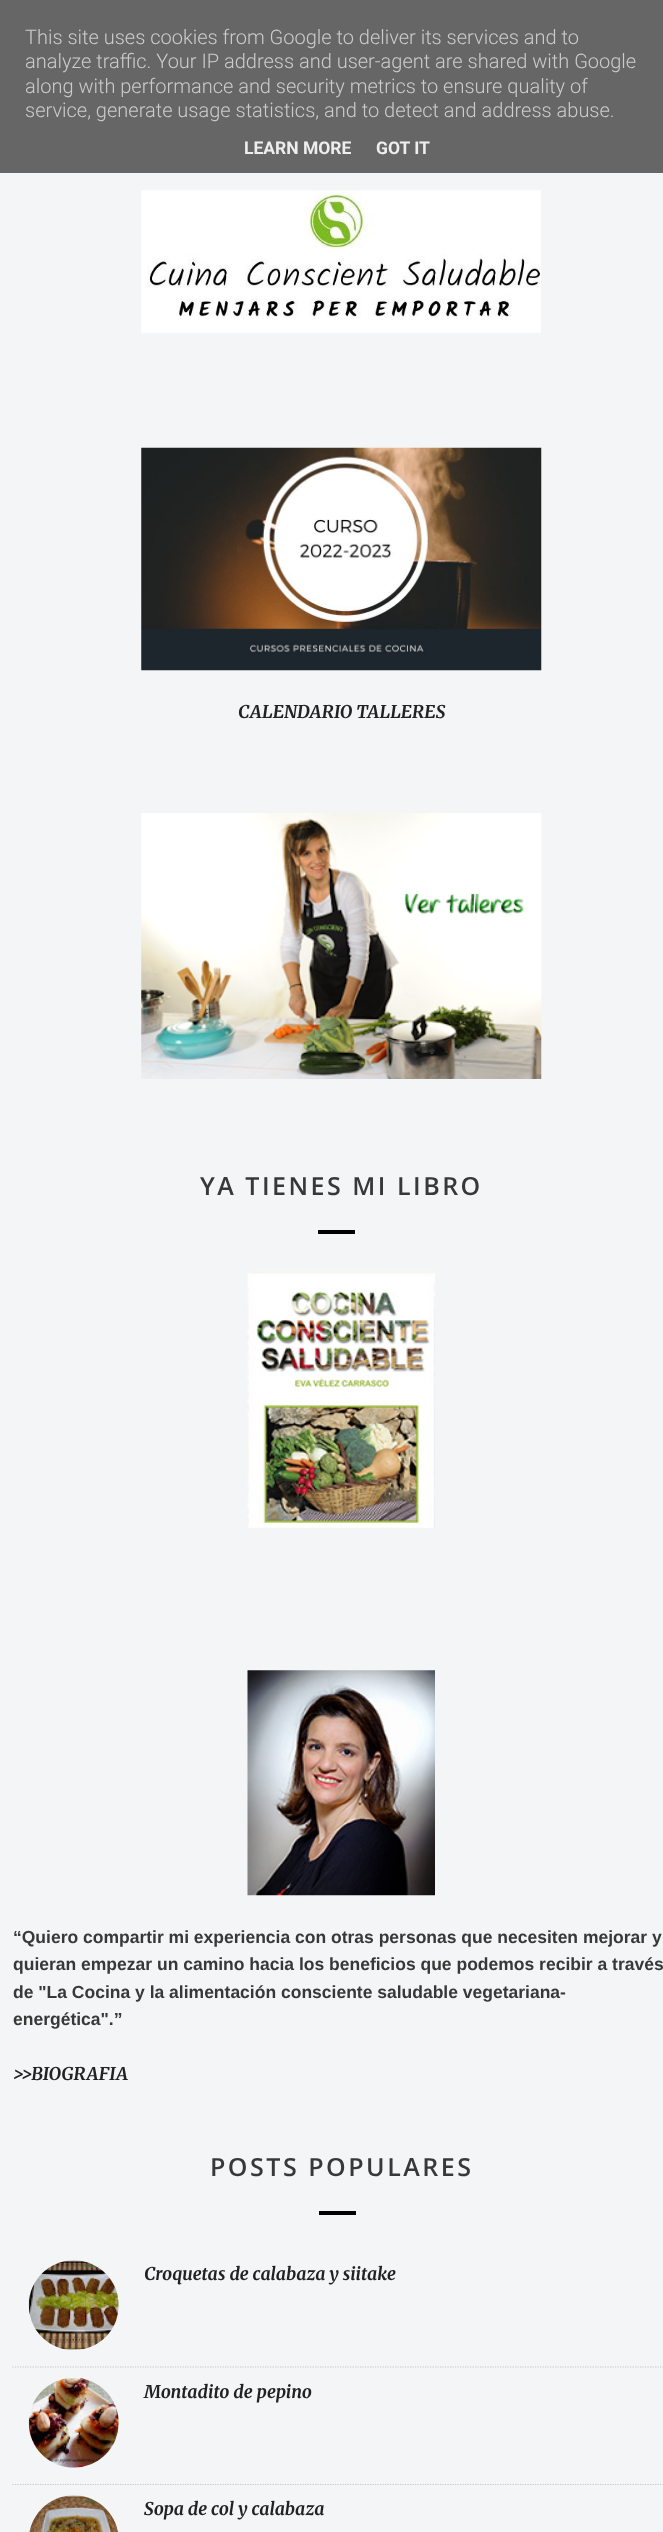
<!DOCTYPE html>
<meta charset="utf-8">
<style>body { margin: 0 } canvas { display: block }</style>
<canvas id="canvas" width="663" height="2532"></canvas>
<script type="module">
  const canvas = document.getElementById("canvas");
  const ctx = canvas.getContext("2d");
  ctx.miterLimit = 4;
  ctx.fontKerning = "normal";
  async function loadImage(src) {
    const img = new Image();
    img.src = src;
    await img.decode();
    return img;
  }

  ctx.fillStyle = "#f3f5f6";
  ctx.fillRect(0, 0, 663, 2532);
  ctx.fillStyle = "#666666";
  ctx.fillRect(0, 0, 663, 173);
  ctx.font = "300 20px Roboto";
  ctx.fillStyle = "#cccccc";
  ctx.fillText("This site uses cookies from Google to deliver its services and to", 25, 44);
  ctx.fillText("analyze traffic. Your IP address and user-agent are shared with Google", 25, 68);
  ctx.fillText("along with performance and security metrics to ensure quality of", 25, 93);
  ctx.fillText("service, generate usage statistics, and to detect and address abuse.", 25, 117);
  ctx.font = "bold 17.5px Roboto";
  ctx.fillStyle = "#eeeeee";
  ctx.fillText("LEARN MORE", 244, 154);
  ctx.fillText("GOT IT", 376, 154);
  ctx.drawImage(await loadImage("img1.png"), 141, 190, 400, 143);
  ctx.drawImage(await loadImage("img2.png"), 141, 447, 401, 224);
  ctx.font = "italic bold 17.5px Merriweather";
  ctx.fillStyle = "#222222";
  ctx.fillText("CALENDARIO TALLERES", 238, 718);
  ctx.drawImage(await loadImage("img3.png"), 141, 813, 401, 266);
  ctx.letterSpacing = "2.5px";
  ctx.font = "600 25px Open Sans";
  ctx.fillStyle = "#383838";
  ctx.fillText("YA TIENES MI LIBRO", 200, 1195);
  ctx.fillStyle = "#000000";
  ctx.fillRect(318, 1230, 37, 4);
  ctx.drawImage(await loadImage("img4.png"), 247, 1269, 188, 259);
  ctx.drawImage(await loadImage("img5.png"), 247, 1670, 188, 226);
  ctx.letterSpacing = "0px";
  ctx.font = "bold 17.5px Liberation Sans";
  ctx.fillStyle = "#383838";
  ctx.fillText("“Quiero compartir mi experiencia con otras personas que necesiten mejorar y", 13, 1943);
  ctx.fillText("quieran empezar un camino hacia los beneficios que podemos recibir a través", 13, 1970);
  ctx.fillText("de \"La Cocina y la alimentación consciente saludable vegetariana-", 13, 1998);
  ctx.fillText("energética\".”", 13, 2025);
  ctx.font = "italic bold 17.5px Merriweather";
  ctx.fillStyle = "#222222";
  ctx.fillText(">>BIOGRAFIA", 13, 2080);
  ctx.letterSpacing = "2.5px";
  ctx.font = "600 25px Open Sans";
  ctx.fillStyle = "#383838";
  ctx.fillText("POSTS POPULARES", 210, 2176);
  ctx.fillStyle = "#000000";
  ctx.fillRect(319, 2211, 37, 4);
  ctx.beginPath();
  ctx.moveTo(12.5, 2367);
  ctx.lineTo(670, 2367);
  ctx.strokeStyle = "#cac7c7";
  ctx.lineWidth = 1.2;
  ctx.setLineDash([1.25, 1.25]);
  ctx.stroke();
  ctx.drawImage(await loadImage("img6.png"), 28, 2260, 91, 90);
  ctx.letterSpacing = "0px";
  ctx.font = "italic bold 17.5px Merriweather";
  ctx.fillStyle = "#222222";
  ctx.fillText("Croquetas de calabaza y siitake", 144, 2280);
  ctx.beginPath();
  ctx.moveTo(12.5, 2484.5);
  ctx.lineTo(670, 2484.5);
  ctx.stroke();
  ctx.drawImage(await loadImage("img7.png"), 28, 2378, 91, 90);
  ctx.fillText("Montadito de pepino", 144, 2398);
  ctx.drawImage(await loadImage("img8.png"), 29, 2495, 89, 37);
  ctx.fillText("Sopa de col y calabaza", 144, 2515);
</script>
